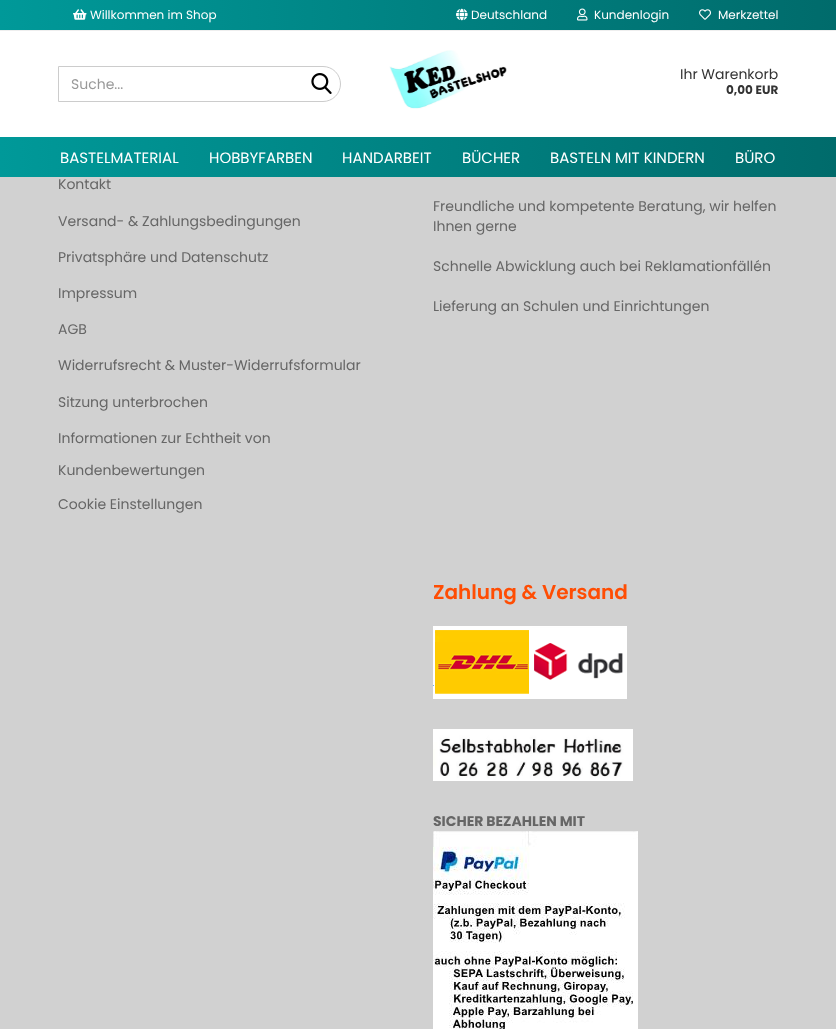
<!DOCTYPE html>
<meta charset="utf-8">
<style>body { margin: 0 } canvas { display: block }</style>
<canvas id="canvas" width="836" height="1029"></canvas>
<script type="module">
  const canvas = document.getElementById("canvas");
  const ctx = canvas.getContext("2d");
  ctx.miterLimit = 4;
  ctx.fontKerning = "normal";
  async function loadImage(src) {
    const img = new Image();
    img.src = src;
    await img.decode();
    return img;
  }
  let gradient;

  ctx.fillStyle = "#d1d1d1";
  ctx.fillRect(0, 0, 836, 1029);
  ctx.fillStyle = "#ffffff";
  ctx.fillRect(0, 31, 836, 106);
  gradient = ctx.createLinearGradient(0, 15, 836, 15);
  gradient.addColorStop(0, "#009999");
  gradient.addColorStop(1, "#006b6b");
  ctx.fillStyle = gradient;
  ctx.fillRect(0, 0, 836, 30);
  ctx.fillStyle = "#eeeeee";
  ctx.fillRect(0, 30, 836, 1);
  ctx.drawImage(await loadImage("img1.png"), 73, 9, 14, 11);
  ctx.font = "12px Poppins";
  ctx.fillStyle = "#ffffff";
  ctx.fillText("Willkommen im Shop", 90, 19);
  ctx.drawImage(await loadImage("img2.png"), 456, 8, 12, 13);
  ctx.fillText("Deutschland", 471, 19);
  ctx.drawImage(await loadImage("img3.png"), 577, 8, 11, 13);
  ctx.fillText("Kundenlogin", 594, 19);
  ctx.drawImage(await loadImage("img4.png"), 699, 9, 12, 11);
  ctx.fillText("Merkzettel", 718, 19);
  ctx.beginPath();
  ctx.roundRect(58.5, 66.5, 282, 35, [0, 17.5, 17.5, 0]);
  ctx.strokeStyle = "#cccccc";
  ctx.stroke();
  ctx.font = "14px Poppins";
  ctx.fillStyle = "#999999";
  ctx.fillText("Suche...", 71, 89);
  ctx.drawImage(await loadImage("img5.png"), 311, 73, 21, 21);
  ctx.drawImage(await loadImage("img6.png"), 389, 50, 118, 59);
  ctx.fillStyle = "#333333";
  ctx.fillText("Ihr Warenkorb", 680, 79);
  ctx.font = "bold 12px Poppins";
  ctx.fillText("0,00 EUR", 726, 94);
  gradient = ctx.createLinearGradient(0, 157, 836, 157);
  gradient.addColorStop(0, "#009999");
  gradient.addColorStop(1, "#006b6b");
  ctx.fillStyle = gradient;
  ctx.fillRect(0, 137, 836, 40);
  ctx.font = "15px Poppins";
  ctx.fillStyle = "#ffffff";
  ctx.fillText("BASTELMATERIAL", 60, 163);
  ctx.fillText("HOBBYFARBEN", 209, 163);
  ctx.fillText("HANDARBEIT", 342, 163);
  ctx.fillText("BÜCHER", 462, 163);
  ctx.fillText("BASTELN MIT KINDERN", 550, 163);
  ctx.fillText("BÜRO", 735, 163);
  ctx.font = "14px Poppins";
  ctx.fillStyle = "#666666";
  ctx.fillText("Kontakt", 58, 189);
  ctx.fillText("Versand- & Zahlungsbedingungen", 58, 226);
  ctx.fillText("Privatsphäre und Datenschutz", 58, 262);
  ctx.fillText("Impressum", 58, 298);
  ctx.fillText("AGB", 58, 334);
  ctx.fillText("Widerrufsrecht & Muster-Widerrufsformular", 58, 370);
  ctx.fillText("Sitzung unterbrochen", 58, 407);
  ctx.fillText("Informationen zur Echtheit von", 58, 443);
  ctx.fillText("Kundenbewertungen", 58, 475);
  ctx.fillText("Cookie Einstellungen", 58, 509);
  ctx.fillText("Freundliche und kompetente Beratung, wir helfen", 433, 211);
  ctx.fillText("Ihnen gerne", 433, 231);
  ctx.fillText("Schnelle Abwicklung auch bei Reklamationfällén", 433, 271);
  ctx.fillText("Lieferung an Schulen und Einrichtungen", 433, 311);
  ctx.font = "600 20px Poppins";
  ctx.fillStyle = "#ff4d03";
  ctx.fillText("Zahlung & Versand", 433, 599);
  ctx.drawImage(await loadImage("img7.png"), 433, 626, 194, 73);
  ctx.drawImage(await loadImage("img8.png"), 433, 729, 200, 52);
  ctx.font = "bold 14px Poppins";
  ctx.fillStyle = "#666666";
  ctx.fillText("SICHER BEZAHLEN MIT", 433, 826);
  ctx.drawImage(await loadImage("img9.png"), 433, 831, 205, 198);
</script>
